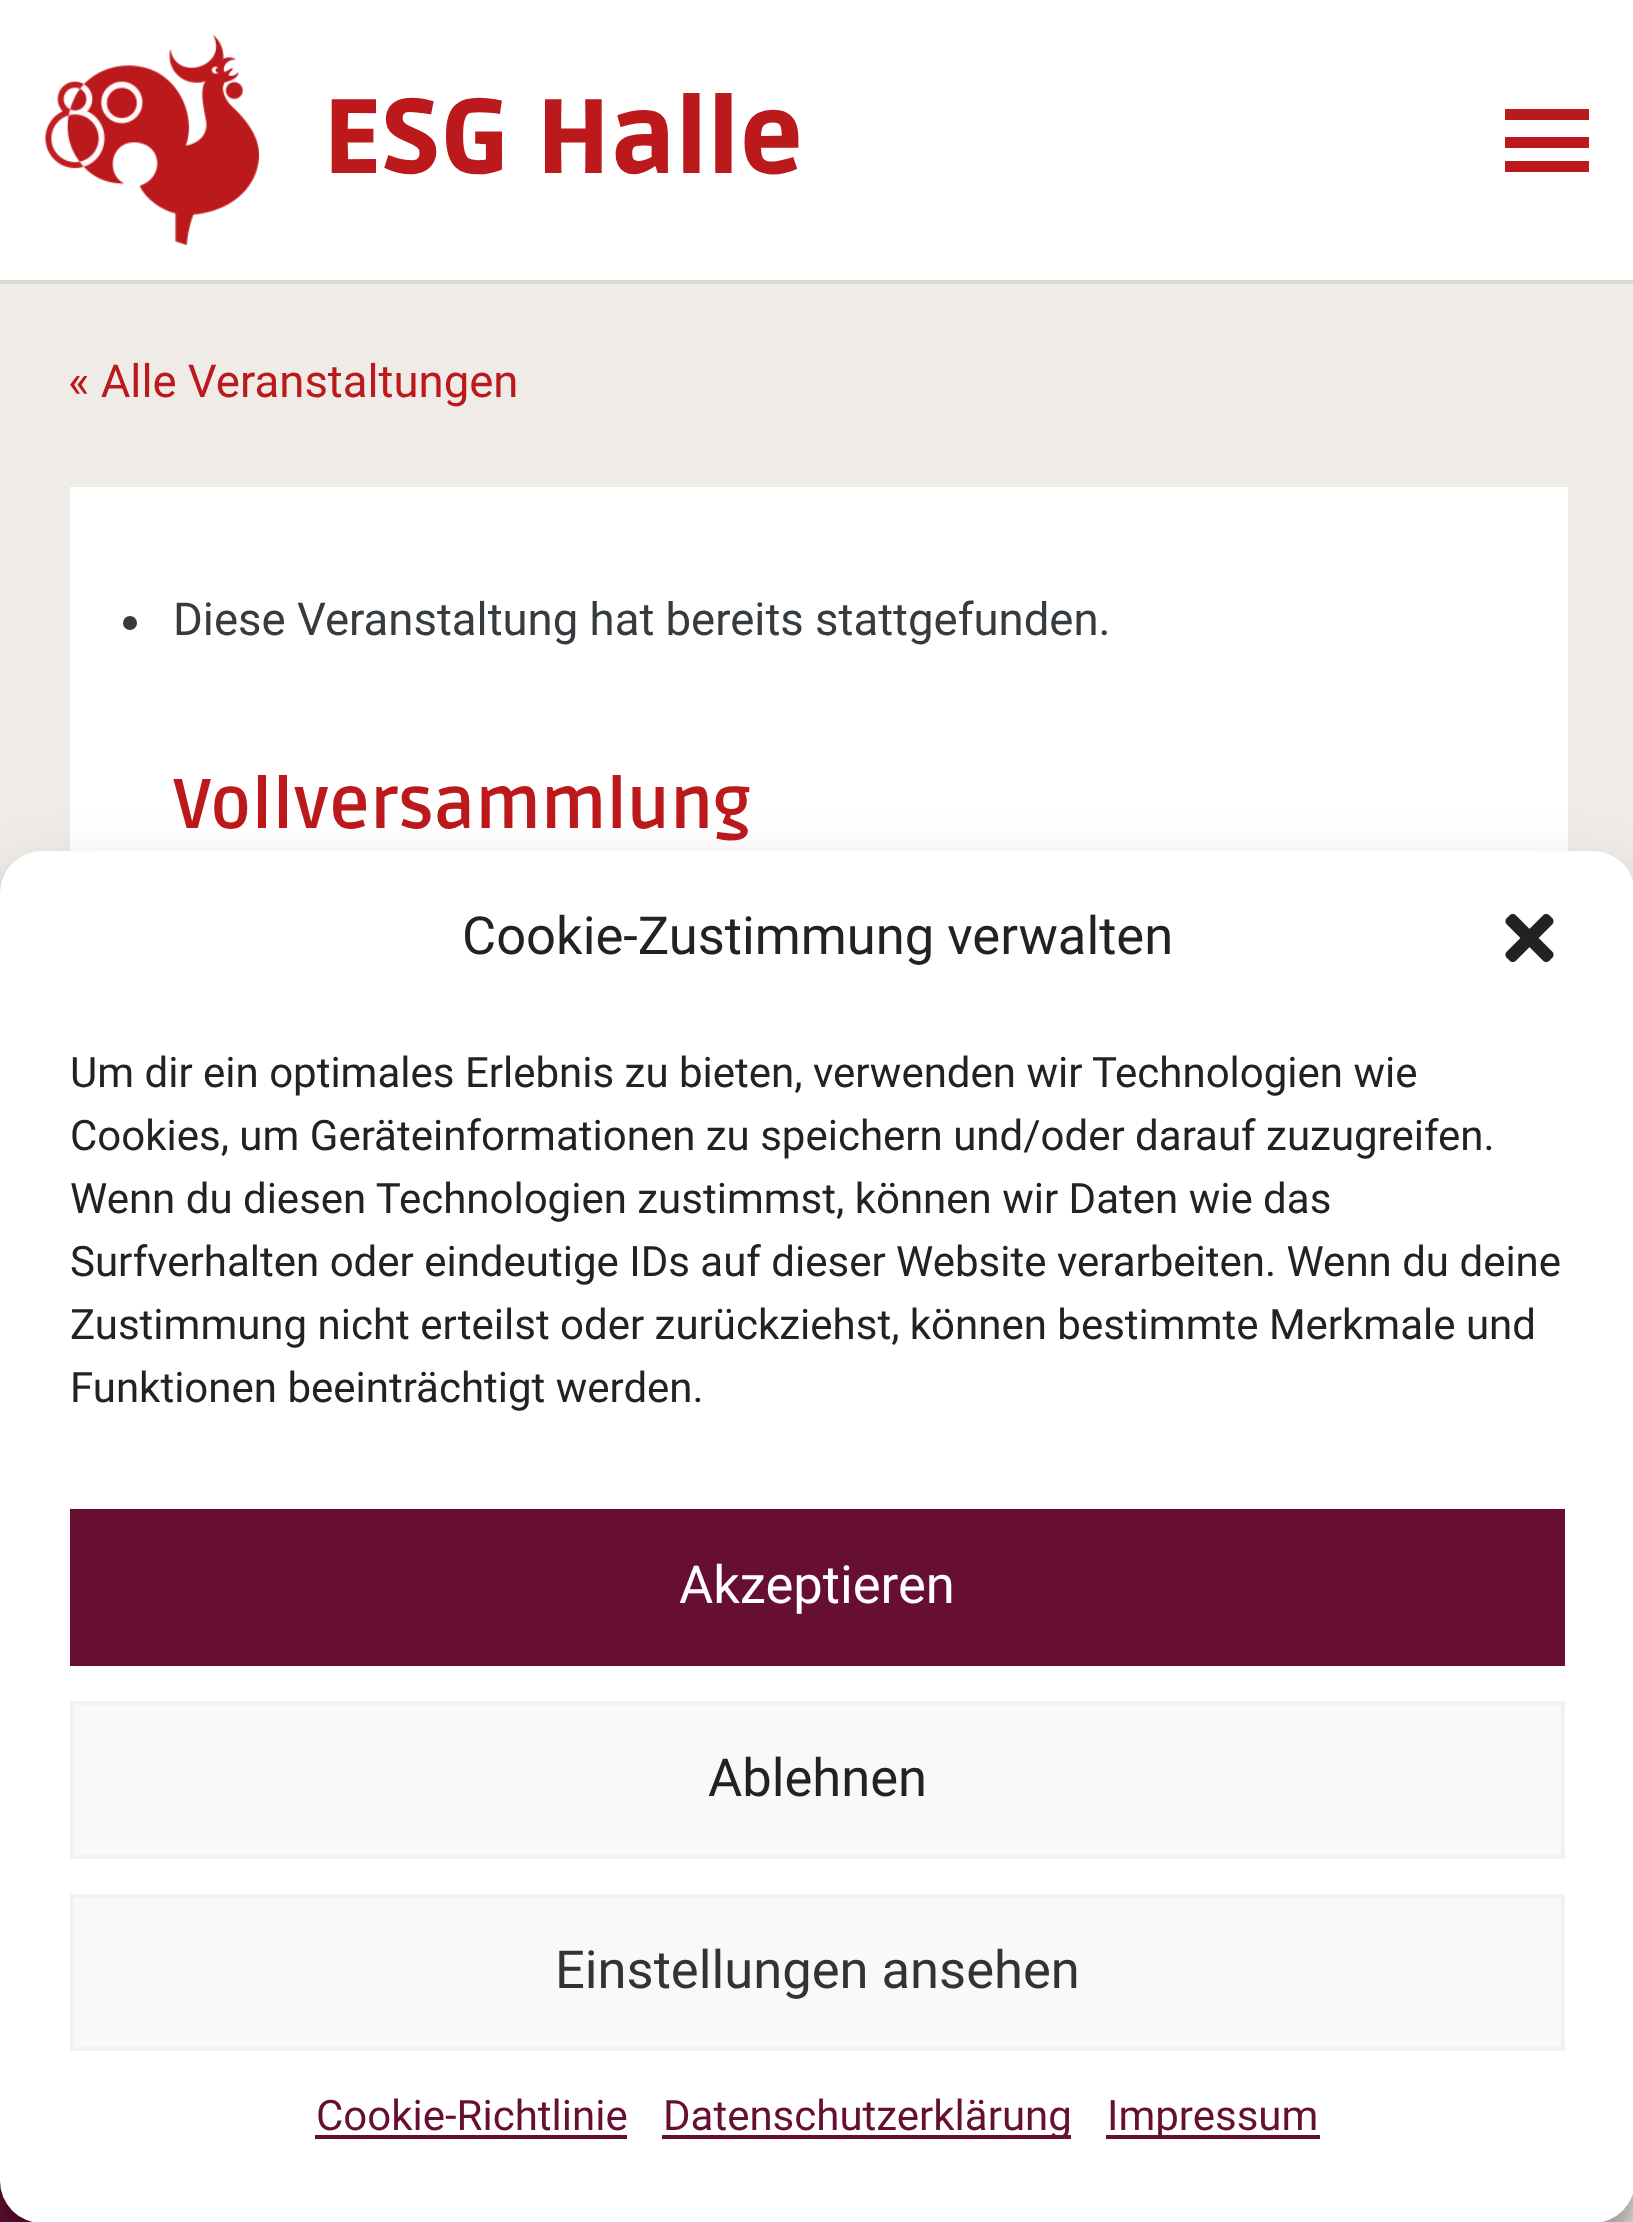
<!DOCTYPE html>
<meta charset="utf-8">
<style>body { margin: 0 } canvas { display: block }</style>
<canvas id="canvas" width="1633" height="2222"></canvas>
<script type="module">
  const canvas = document.getElementById("canvas");
  const ctx = canvas.getContext("2d");
  ctx.miterLimit = 4;
  ctx.fontKerning = "normal";
  async function loadImage(src) {
    const img = new Image();
    img.src = src;
    await img.decode();
    return img;
  }

  ctx.fillStyle = "#efece8";
  ctx.fillRect(0, 0, 1633, 2222);
  ctx.fillStyle = "#dcd9d5";
  ctx.beginPath();
  ctx.moveTo(0, 280);
  ctx.lineTo(0, 284);
  ctx.lineTo(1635, 284);
  ctx.lineTo(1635, 4);
  ctx.lineTo(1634, 4);
  ctx.lineTo(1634, 280);
  ctx.closePath();
  ctx.fill();
  ctx.fillStyle = "#ffffff";
  ctx.fillRect(0, 0, 1633, 280);
  ctx.drawImage(await loadImage("img1.png"), 45, 35, 214, 210);
  ctx.font = "900 105px Ruda";
  ctx.fillStyle = "#bc191d";
  ctx.fillText("ESG Halle", 323, 173);
  ctx.fillRect(1505, 137, 84, 11);
  ctx.fillRect(1505, 109, 84, 11);
  ctx.fillRect(1505, 161, 84, 11);
  ctx.font = "45.5px Roboto";
  ctx.fillText("« Alle Veranstaltungen", 68, 397);
  ctx.fillStyle = "#ffffff";
  ctx.fillRect(70, 487, 1498, 364);
  ctx.fillStyle = "#363b3f";
  ctx.beginPath();
  ctx.arc(130, 623, 7, 0, Math.PI * 2);
  ctx.fill();
  ctx.fillText("Diese Veranstaltung hat bereits stattgefunden.", 173, 635);
  ctx.font = "bold 70px Ruda";
  ctx.fillStyle = "#bc191d";
  ctx.fillText("Vollversammlung", 173, 828);
  ctx.fillStyle = "#670f33";
  ctx.fillRect(0, 2181, 33, 41);
  ctx.fillStyle = "rgba(0, 0, 0, 0.23)";
  ctx.filter = "blur(10.5px)";
  ctx.beginPath();
  ctx.roundRect(0, 872, 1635, 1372, 42);
  ctx.fill();
  ctx.filter = "none";
  ctx.fillStyle = "rgba(0, 0, 0, 0.19)";
  ctx.filter = "blur(35px)";
  ctx.beginPath();
  ctx.roundRect(0, 886, 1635, 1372, 42);
  ctx.fill();
  ctx.filter = "none";
  ctx.fillStyle = "#ffffff";
  ctx.beginPath();
  ctx.roundRect(0, 851, 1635, 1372, 42);
  ctx.fill();
  ctx.font = "52.5px Roboto";
  ctx.fillStyle = "#222222";
  ctx.fillText("Cookie-Zustimmung verwalten", 462, 954);
  ctx.drawImage(await loadImage("img2.png"), 1505, 913, 49, 50);
  ctx.font = "42px Roboto";
  ctx.fillText("Um dir ein optimales Erlebnis zu bieten, verwenden wir Technologien wie", 70, 1087);
  ctx.fillText("Cookies, um Geräteinformationen zu speichern und/oder darauf zuzugreifen.", 70, 1150);
  ctx.fillText("Wenn du diesen Technologien zustimmst, können wir Daten wie das", 70, 1213);
  ctx.fillText("Surfverhalten oder eindeutige IDs auf dieser Website verarbeiten. Wenn du deine", 70, 1276);
  ctx.fillText("Zustimmung nicht erteilst oder zurückziehst, können bestimmte Merkmale und", 70, 1339);
  ctx.fillText("Funktionen beeinträchtigt werden.", 70, 1402);
  ctx.fillStyle = "#670f33";
  ctx.fillRect(70, 1509, 1495, 157);
  ctx.font = "52.5px Roboto";
  ctx.fillStyle = "#ffffff";
  ctx.fillText("Akzeptieren", 679, 1603);
  ctx.fillStyle = "#f9f9f9";
  ctx.beginPath();
  ctx.rect(72, 1703, 1491, 154);
  ctx.fill();
  ctx.strokeStyle = "#f2f2f2";
  ctx.lineWidth = 4;
  ctx.stroke();
  ctx.fillStyle = "#222222";
  ctx.fillText("Ablehnen", 708, 1796);
  ctx.fillStyle = "#f9f9f9";
  ctx.beginPath();
  ctx.rect(72, 1896, 1491, 153);
  ctx.fill();
  ctx.stroke();
  ctx.fillStyle = "#333333";
  ctx.fillText("Einstellungen ansehen", 555, 1988);
  ctx.font = "42px Roboto";
  ctx.fillStyle = "#670f33";
  ctx.fillText("Cookie-Richtlinie", 316, 2130);
  ctx.fillRect(315, 2135, 312, 4);
  ctx.fillRect(662, 2135, 409, 4);
  ctx.fillText("Datenschutzerklärung", 663, 2130);
  ctx.fillRect(1106, 2135, 214, 4);
  ctx.fillText("Impressum", 1107, 2130);
</script>
